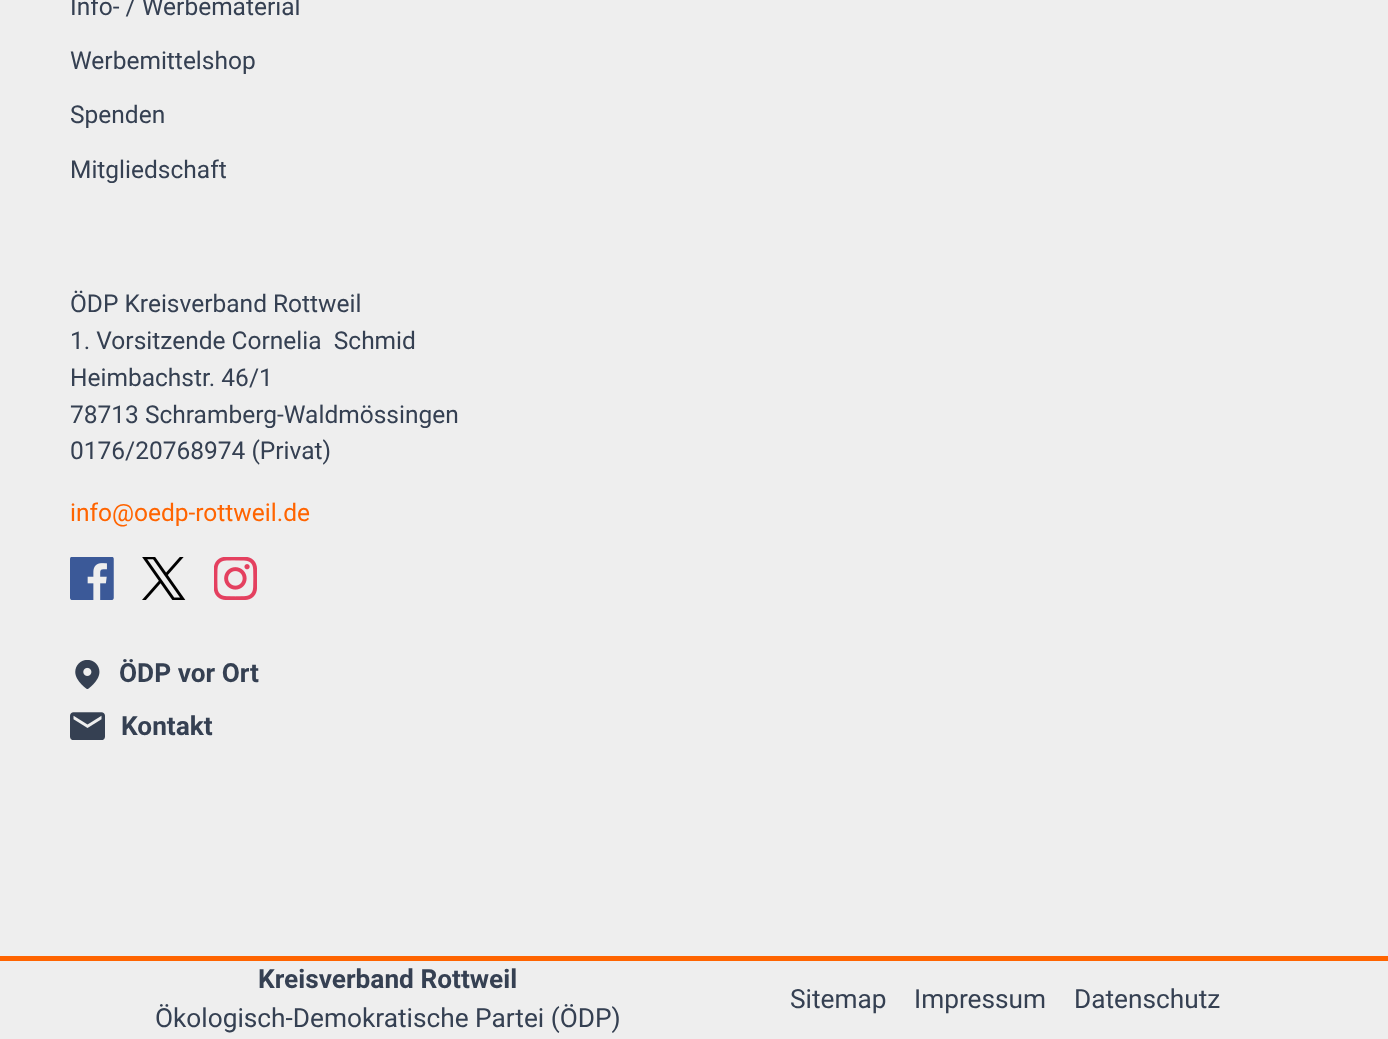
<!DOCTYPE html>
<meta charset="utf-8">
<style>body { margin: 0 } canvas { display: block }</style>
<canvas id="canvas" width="1388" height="1039"></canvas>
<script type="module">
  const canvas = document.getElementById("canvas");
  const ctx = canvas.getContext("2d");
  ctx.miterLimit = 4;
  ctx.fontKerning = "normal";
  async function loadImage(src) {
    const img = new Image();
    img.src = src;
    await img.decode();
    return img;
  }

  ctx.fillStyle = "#eeeeee";
  ctx.fillRect(0, 0, 1388, 1039);
  ctx.font = "24.5px Roboto";
  ctx.fillStyle = "#354052";
  ctx.fillText("Info- / Werbematerial", 70, 15);
  ctx.fillText("Werbemittelshop", 70, 69);
  ctx.fillText("Spenden", 70, 123);
  ctx.fillText("Mitgliedschaft", 70, 178);
  ctx.fillText("ÖDP Kreisverband Rottweil", 70, 312);
  ctx.fillText("1. Vorsitzende Cornelia  Schmid", 70, 349);
  ctx.fillText("Heimbachstr. 46/1", 70, 386);
  ctx.fillText("78713 Schramberg-Waldmössingen", 70, 423);
  ctx.fillText("0176/20768974 (Privat)", 70, 459);
  ctx.fillStyle = "#ff6400";
  ctx.fillText("info@oedp-rottweil.de", 70, 521);
  ctx.drawImage(await loadImage("img1.png"), 70, 557, 44, 43);
  ctx.drawImage(await loadImage("img2.png"), 142, 557, 44, 43);
  ctx.drawImage(await loadImage("img3.png"), 214, 557, 43, 43);
  ctx.drawImage(await loadImage("img4.png"), 75, 660, 25, 29);
  ctx.font = "bold 26.25px Roboto";
  ctx.fillStyle = "#354052";
  ctx.fillText("ÖDP vor Ort", 119, 682);
  ctx.drawImage(await loadImage("img5.png"), 70, 712, 35, 28);
  ctx.fillText("Kontakt", 121, 735);
  ctx.fillStyle = "#ff6400";
  ctx.fillRect(0, 956, 1388, 5);
  ctx.fillStyle = "#354052";
  ctx.fillText("Kreisverband Rottweil", 258, 988);
  ctx.font = "26.25px Roboto";
  ctx.fillText("Ökologisch-Demokratische Partei (ÖDP)", 155, 1027);
  ctx.fillText("Sitemap", 790, 1008);
  ctx.fillText("Impressum", 914, 1008);
  ctx.fillText("Datenschutz", 1074, 1008);
</script>
